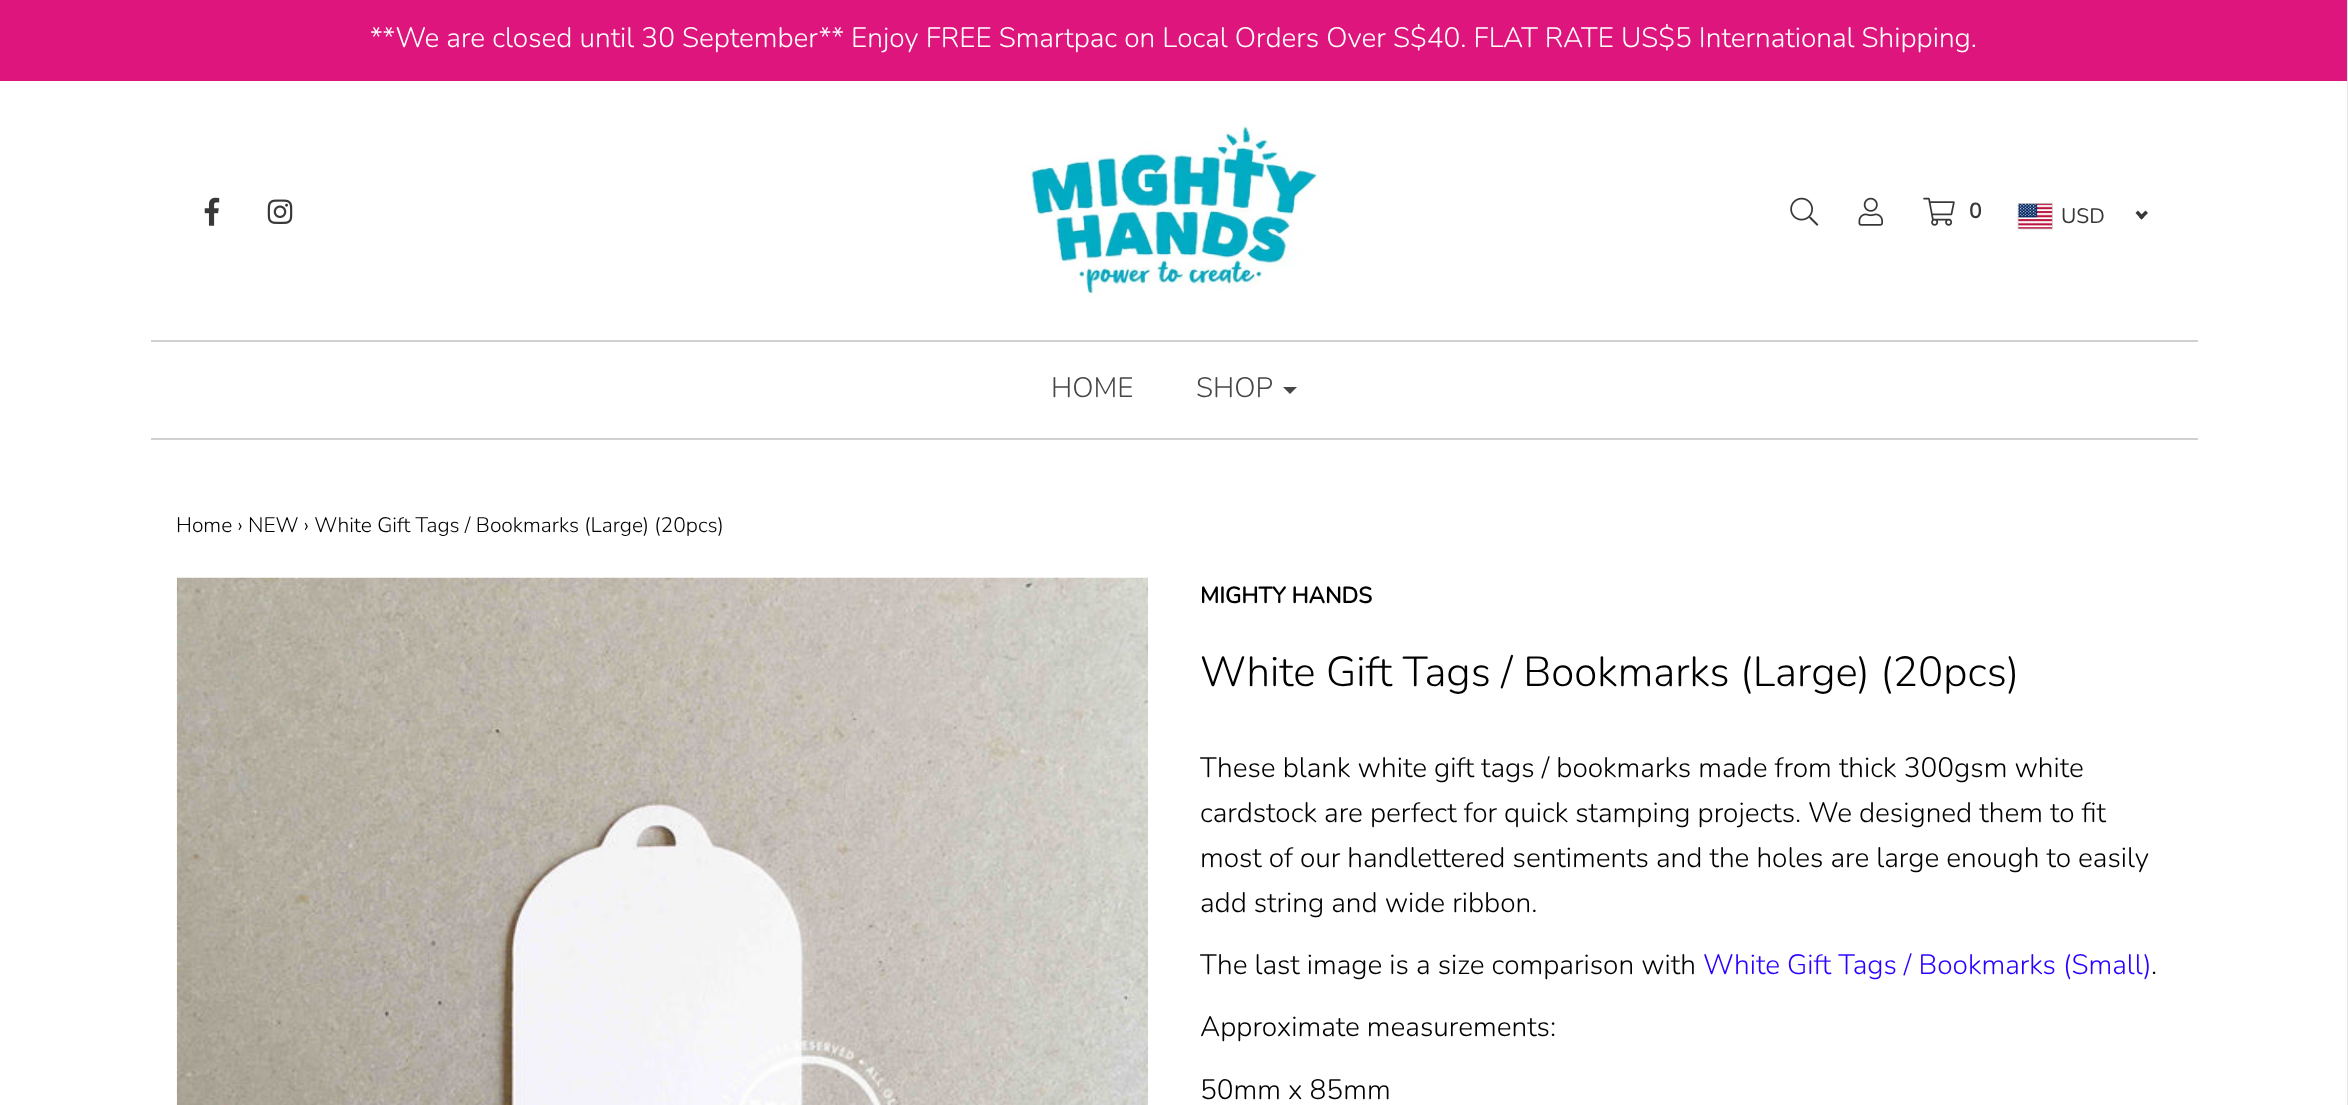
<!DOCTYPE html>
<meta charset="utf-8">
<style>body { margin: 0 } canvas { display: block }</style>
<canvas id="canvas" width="2348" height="1105"></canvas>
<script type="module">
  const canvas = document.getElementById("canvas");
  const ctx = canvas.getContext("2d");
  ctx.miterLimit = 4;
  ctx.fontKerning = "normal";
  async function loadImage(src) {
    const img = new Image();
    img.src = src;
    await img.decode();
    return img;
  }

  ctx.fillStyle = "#ffffff";
  ctx.fillRect(0, 0, 2348, 1105);
  ctx.fillStyle = "#e6e6e6";
  ctx.fillRect(2347, 0, 1, 1105);
  ctx.fillStyle = "#dd157d";
  ctx.fillRect(0, 0, 2347, 81);
  ctx.font = "300 28px Nunito";
  ctx.fillStyle = "#ffffff";
  ctx.fillText("**We are closed until 30 September** Enjoy FREE Smartpac on Local Orders Over S$40. FLAT RATE US$5 International Shipping.", 370, 47);
  ctx.drawImage(await loadImage("img1.png"), 204, 197, 16, 29);
  ctx.drawImage(await loadImage("img2.png"), 267, 199, 26, 25);
  ctx.drawImage(await loadImage("img3.png"), 1026, 124, 293, 174);
  ctx.drawImage(await loadImage("img4.png"), 1790, 197, 29, 29);
  ctx.drawImage(await loadImage("img5.png"), 1858, 197, 25, 29);
  ctx.drawImage(await loadImage("img6.png"), 1923, 197, 32, 29);
  ctx.font = "bold 21px Nunito";
  ctx.fillStyle = "#383838";
  ctx.fillText("0", 1969, 218);
  ctx.drawImage(await loadImage("img7.png"), 2017, 203, 36, 27);
  ctx.font = "21px Nunito";
  ctx.fillText("USD", 2061, 223);
  ctx.beginPath();
  ctx.moveTo(2145.5, 210.5);
  ctx.lineTo(2148, 213);
  ctx.lineTo(2141.5, 219.5);
  ctx.lineTo(2139, 217);
  ctx.closePath();
  ctx.fill();
  ctx.beginPath();
  ctx.moveTo(2138, 210.5);
  ctx.lineTo(2144, 217);
  ctx.lineTo(2141.5, 219.5);
  ctx.lineTo(2135.5, 213);
  ctx.closePath();
  ctx.fill();
  ctx.fillStyle = "#d1d1d1";
  ctx.fillRect(151, 340, 2047, 2);
  ctx.fillRect(151, 438, 2047, 2);
  ctx.font = "300 28px Nunito";
  ctx.fillStyle = "#464646";
  ctx.fillText("HOME", 1051, 397);
  ctx.fillText("SHOP", 1196, 397);
  ctx.beginPath();
  ctx.moveTo(1283, 387);
  ctx.lineTo(1297, 387);
  ctx.lineTo(1290, 394);
  ctx.closePath();
  ctx.fill();
  ctx.font = "300 21px Nunito";
  ctx.fillStyle = "#000000";
  ctx.fillText("Home › NEW › White Gift Tags / Bookmarks (Large) (20pcs)", 176, 532);
  ctx.drawImage(await loadImage("img8.png"), 176, 577, 972, 528);
  ctx.font = "bold 22.5px Nunito";
  ctx.fillText("MIGHTY HANDS", 1200, 603);
  ctx.font = "300 42px Nunito";
  ctx.fillText("White Gift Tags / Bookmarks (Large) (20pcs)", 1200, 686);
  ctx.font = "300 28px Nunito";
  ctx.fillText("These blank white gift tags / bookmarks made from thick 300gsm white", 1200, 777);
  ctx.fillText("cardstock are perfect for quick stamping projects. We designed them to fit", 1200, 822);
  ctx.fillText("most of our handlettered sentiments and the holes are large enough to easily", 1200, 867);
  ctx.fillText("add string and wide ribbon.", 1200, 912);
  ctx.fillText("The last image is a size comparison with", 1200, 974);
  ctx.fillStyle = "#2b00ff";
  ctx.fillText("White Gift Tags / Bookmarks (Small)", 1703, 974);
  ctx.fillStyle = "#000000";
  ctx.fillText(".", 2151, 974);
  ctx.fillText("Approximate measurements:", 1200, 1036);
  ctx.fillText("50mm x 85mm", 1200, 1099);
</script>
